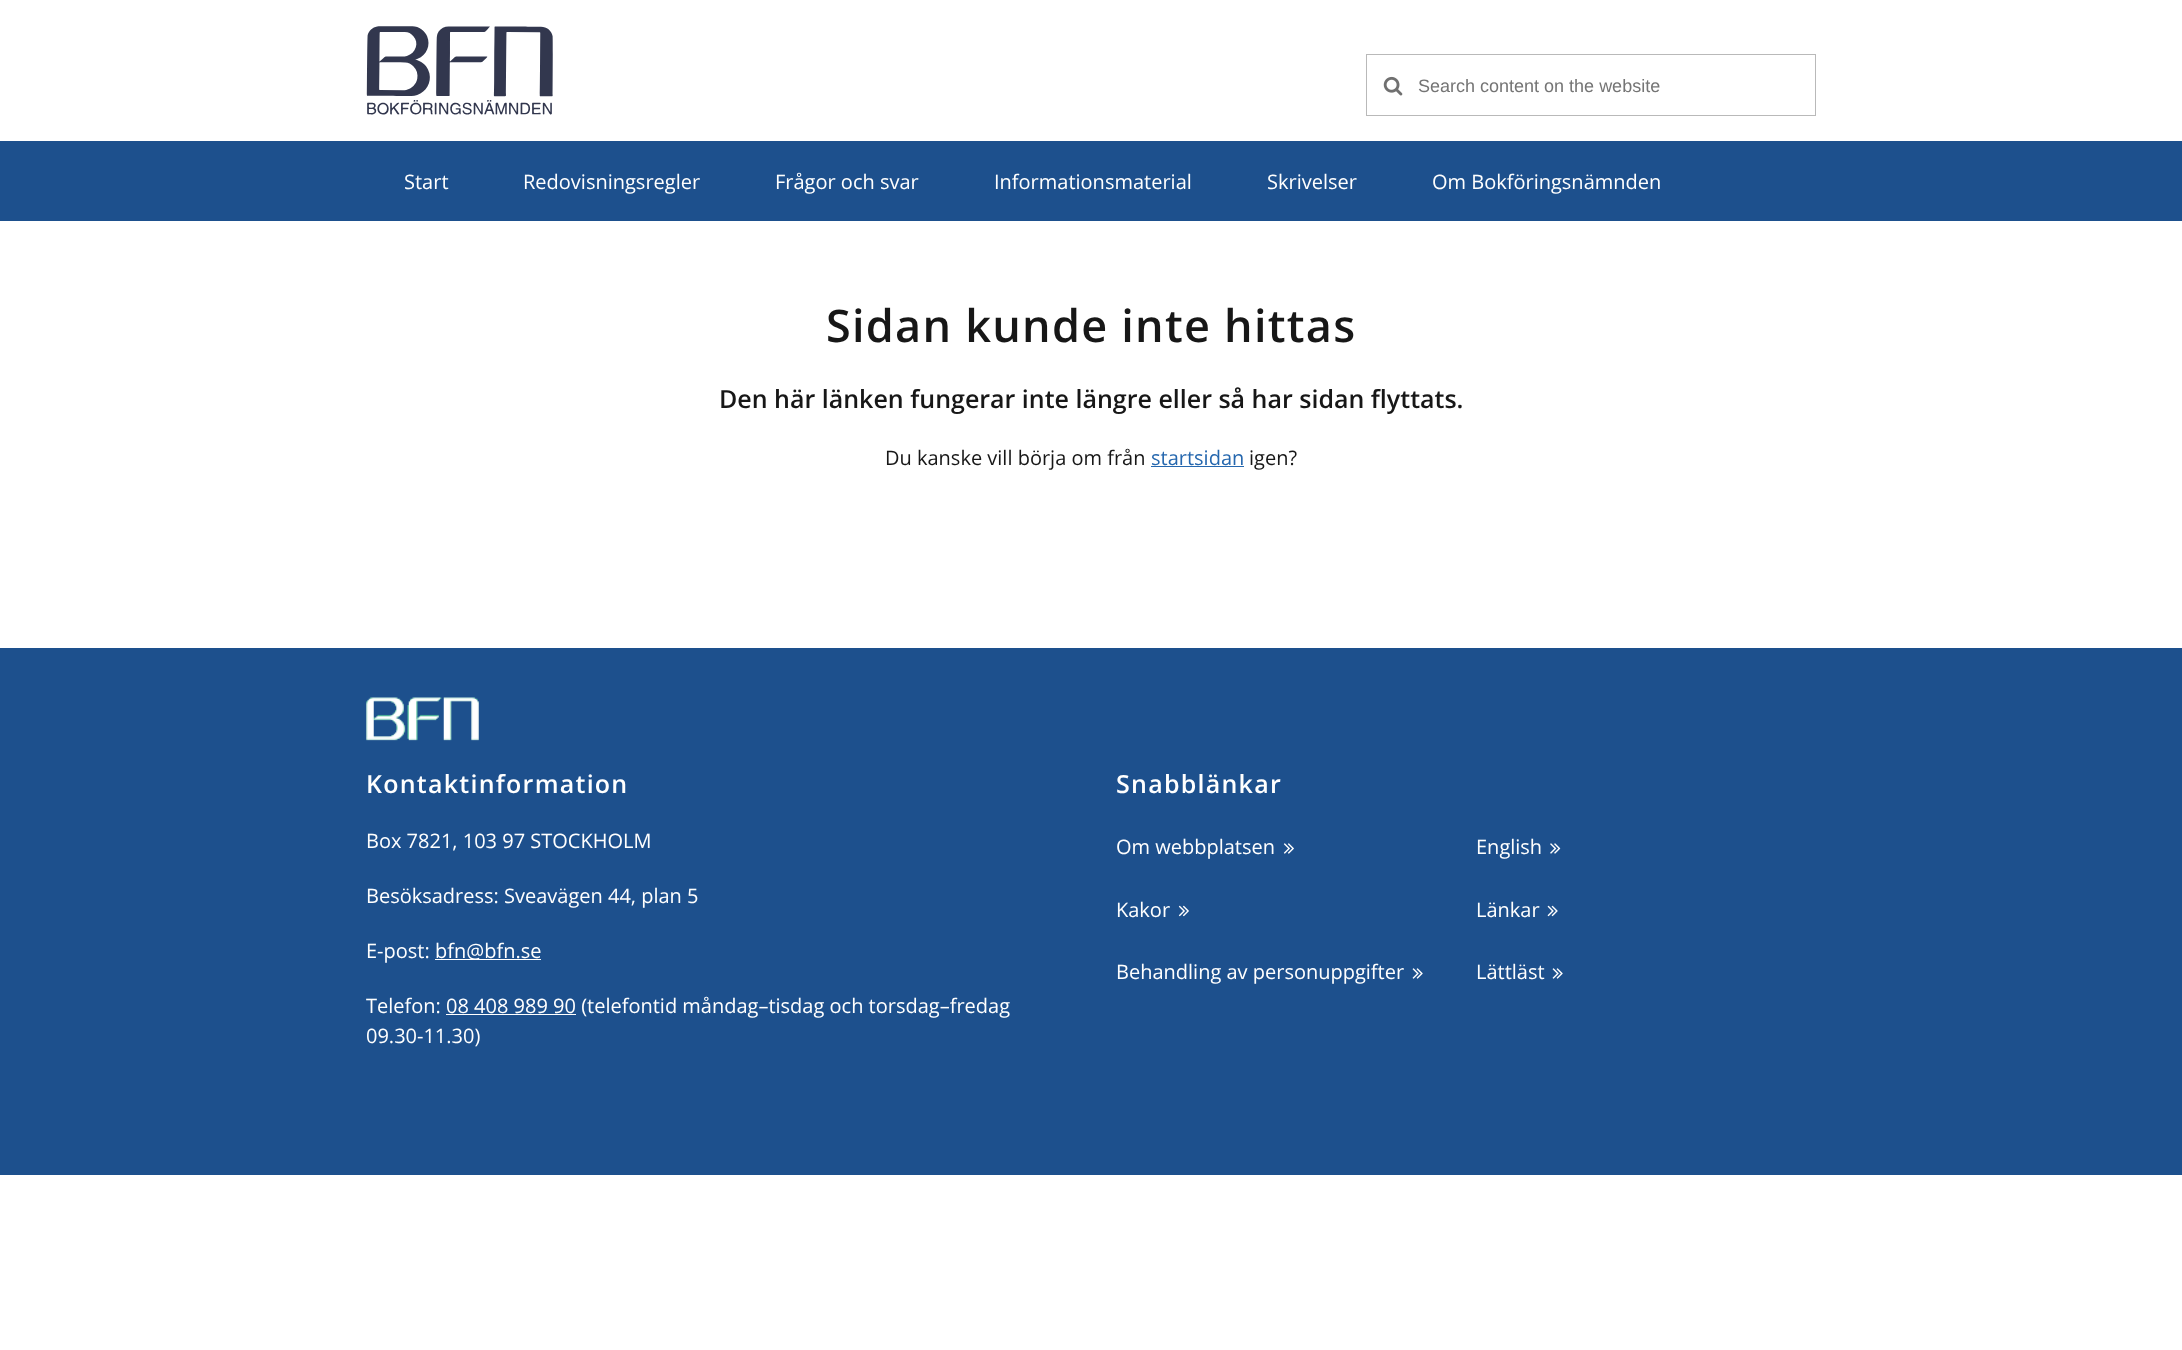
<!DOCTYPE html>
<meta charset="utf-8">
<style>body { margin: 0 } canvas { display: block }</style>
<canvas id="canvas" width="2182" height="1350"></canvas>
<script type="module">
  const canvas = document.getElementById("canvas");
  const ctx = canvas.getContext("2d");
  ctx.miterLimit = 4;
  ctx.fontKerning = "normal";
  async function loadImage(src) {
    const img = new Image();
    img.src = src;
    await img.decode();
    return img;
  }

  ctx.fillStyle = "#ffffff";
  ctx.fillRect(0, 0, 2182, 1350);
  ctx.drawImage(await loadImage("img1.png"), 366, 26, 187, 89);
  ctx.strokeStyle = "#b9b9b9";
  ctx.strokeRect(1366.5, 54.5, 449, 61);
  ctx.drawImage(await loadImage("img2.png"), 1383, 76, 20, 20);
  ctx.font = "18px Liberation Sans";
  ctx.fillStyle = "#757575";
  ctx.fillText("Search content on the website", 1418, 92);
  ctx.fillStyle = "#1d508d";
  ctx.fillRect(0, 141, 2182, 80);
  ctx.font = "20px Open Sans";
  ctx.fillStyle = "#ffffff";
  ctx.fillText("Start", 404, 189);
  ctx.fillText("Redovisningsregler", 523, 189);
  ctx.fillText("Frågor och svar", 775, 189);
  ctx.fillText("Informationsmaterial", 994, 189);
  ctx.fillText("Skrivelser", 1267, 189);
  ctx.fillText("Om Bokföringsnämnden", 1432, 189);
  ctx.letterSpacing = "1.25px";
  ctx.font = "600 45px Open Sans";
  ctx.fillStyle = "#171717";
  ctx.fillText("Sidan kunde inte hittas", 826, 342);
  ctx.letterSpacing = "0px";
  ctx.font = "600 25px Open Sans";
  ctx.fillText("Den här länken fungerar inte längre eller så har sidan flyttats.", 719, 408);
  ctx.font = "20px Open Sans";
  ctx.fillText("Du kanske vill börja om från", 885, 465);
  ctx.fillStyle = "#2567ae";
  ctx.fillText("startsidan", 1151, 465);
  ctx.fillRect(1151, 466, 93, 1);
  ctx.fillStyle = "#171717";
  ctx.fillText("igen?", 1249, 465);
  ctx.fillStyle = "#1d508d";
  ctx.fillRect(0, 648, 2182, 527);
  ctx.drawImage(await loadImage("img3.png"), 366, 697, 113, 44);
  ctx.letterSpacing = "1.25px";
  ctx.font = "600 25px Open Sans";
  ctx.fillStyle = "#ffffff";
  ctx.fillText("Kontaktinformation", 366, 793);
  ctx.letterSpacing = "0px";
  ctx.font = "20px Open Sans";
  ctx.fillText("Box 7821, 103 97 STOCKHOLM", 366, 848);
  ctx.fillText("Besöksadress: Sveavägen 44, plan 5", 366, 903);
  ctx.fillText("E-post:", 366, 958);
  ctx.fillRect(435, 959, 106, 1);
  ctx.fillText("bfn@bfn.se", 435, 958);
  ctx.fillText("Telefon: 08 408 989 90 (telefontid måndag–tisdag och torsdag–fredag", 366, 1013);
  ctx.fillRect(446, 1014, 130, 1);
  ctx.fillText("09.30-11.30)", 366, 1043);
  ctx.letterSpacing = "1.25px";
  ctx.font = "600 25px Open Sans";
  ctx.fillText("Snabblänkar", 1116, 793);
  ctx.letterSpacing = "0px";
  ctx.font = "20px Open Sans";
  ctx.fillText("Om webbplatsen", 1116, 854);
  ctx.drawImage(await loadImage("img4.png"), 1283, 843, 11, 11);
  ctx.fillText("English", 1476, 854);
  ctx.drawImage(await loadImage("img5.png"), 1550, 843, 11, 11);
  ctx.fillText("Kakor", 1116, 917);
  ctx.drawImage(await loadImage("img6.png"), 1178, 905, 11, 12);
  ctx.fillText("Länkar", 1476, 917);
  ctx.drawImage(await loadImage("img7.png"), 1547, 905, 11, 12);
  ctx.fillText("Behandling av personuppgifter", 1116, 979);
  ctx.drawImage(await loadImage("img8.png"), 1412, 968, 11, 11);
  ctx.fillText("Lättläst", 1476, 979);
  ctx.drawImage(await loadImage("img8.png"), 1552, 968, 11, 11);
</script>
